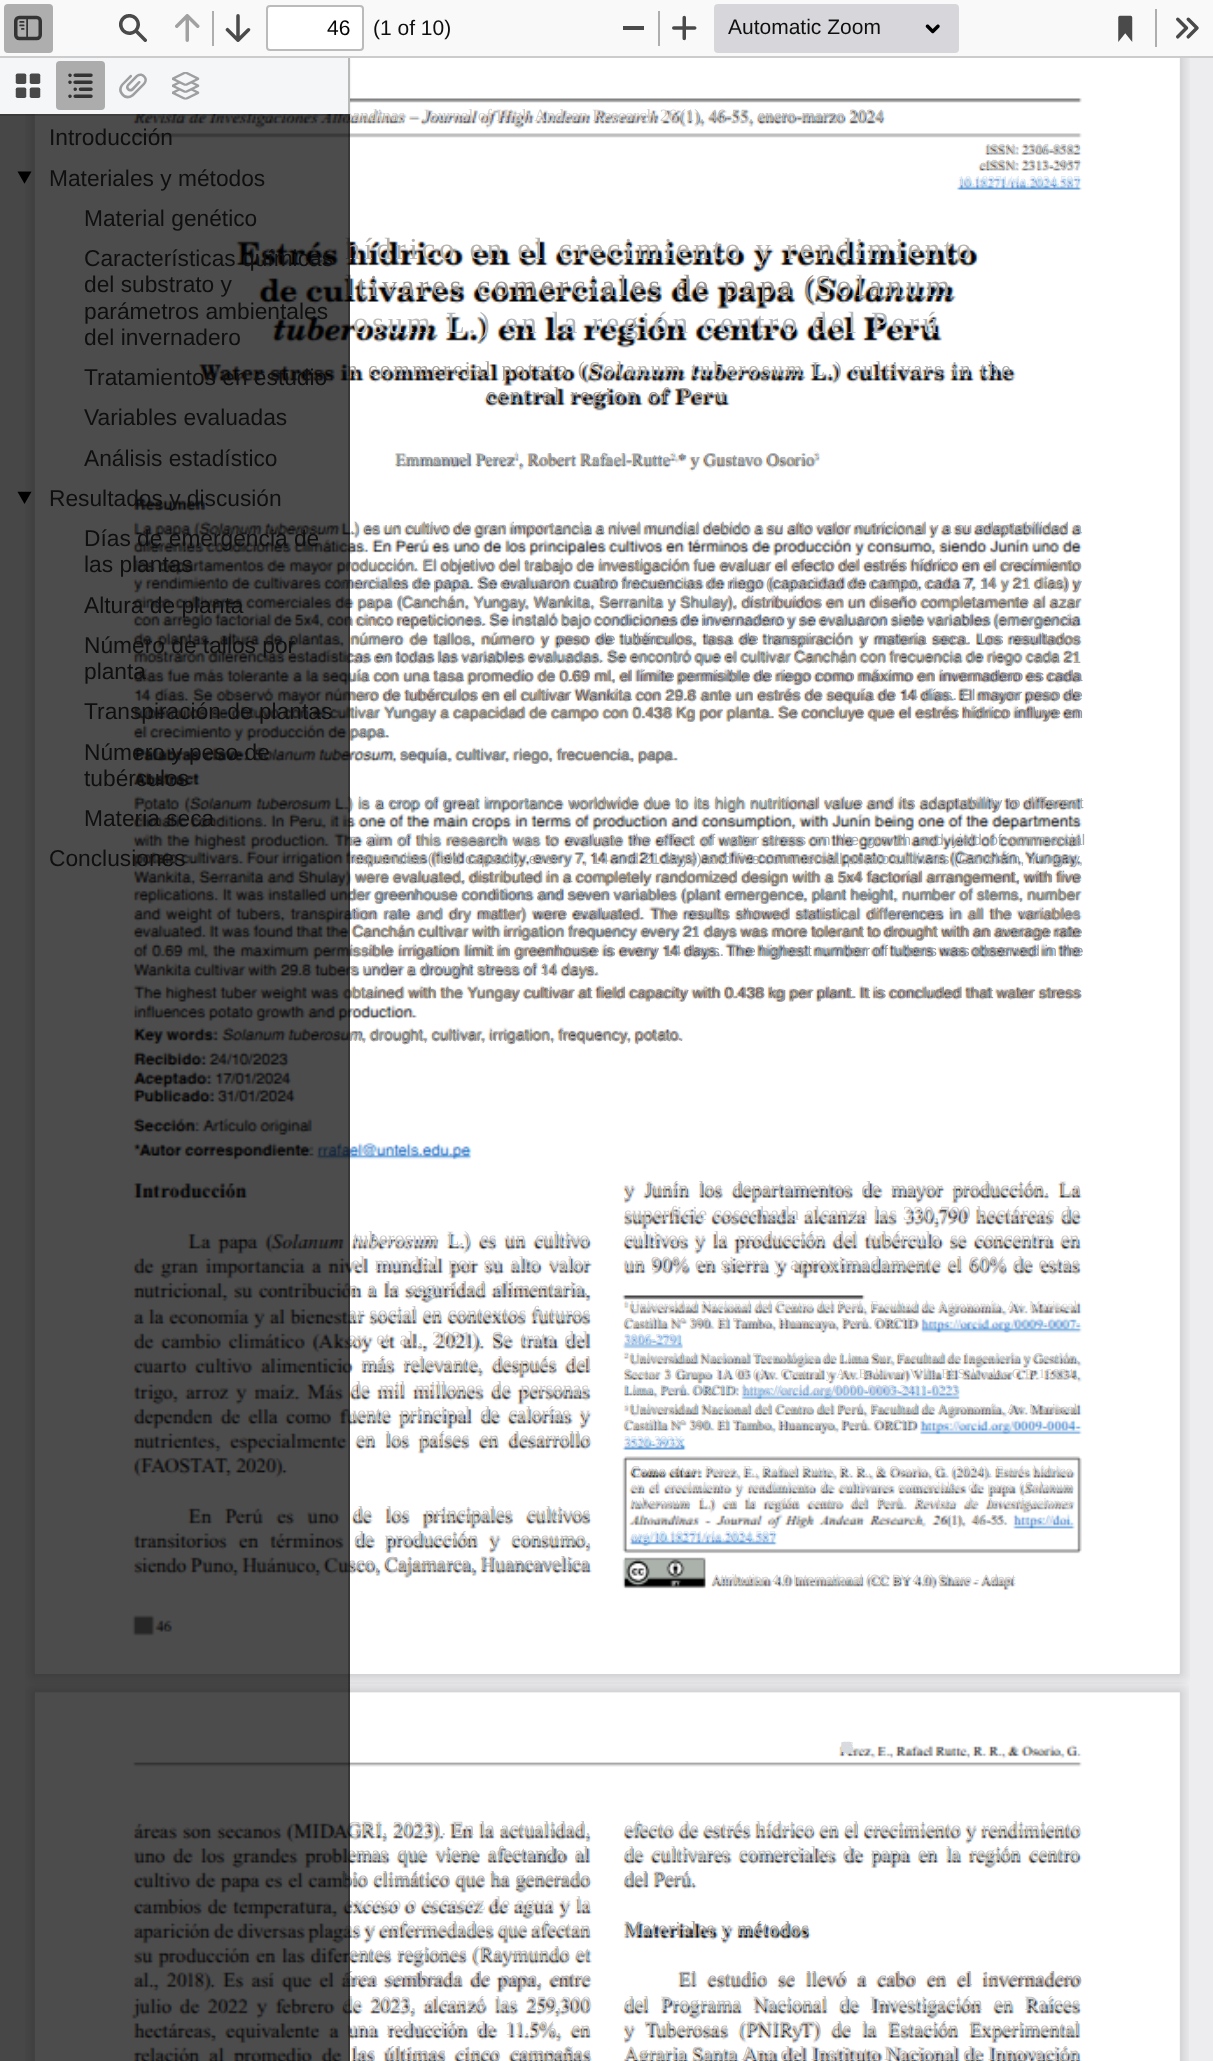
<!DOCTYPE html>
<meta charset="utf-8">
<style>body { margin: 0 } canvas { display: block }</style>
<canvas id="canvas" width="1213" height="2061"></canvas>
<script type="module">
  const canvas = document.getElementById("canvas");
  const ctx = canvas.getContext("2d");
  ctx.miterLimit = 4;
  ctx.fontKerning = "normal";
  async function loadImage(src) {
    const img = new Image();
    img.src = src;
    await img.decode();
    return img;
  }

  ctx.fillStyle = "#ededf0";
  ctx.fillRect(0, 0, 1213, 2061);
  ctx.fillStyle = "#ffffff";
  ctx.fillRect(1179, 58, 1, 1615);
  ctx.drawImage(await loadImage("img15.png"), 25, 58, 1165, 1626);
  ctx.drawImage(await loadImage("img16.png"), 35, 58, 1145, 1616);
  ctx.fillStyle = "rgba(0, 0, 0, 0.1)";
  ctx.filter = "blur(1px)";
  ctx.beginPath();
  ctx.rect(0, 58, 350, 56);
  ctx.fill();
  ctx.filter = "none";
  ctx.font = "17.25px Liberation Serif";
  ctx.fillStyle = "#cecbcb";
  ctx.fillText("oandinas – Journal of High Andean Research 26", 344, 121);
  ctx.fillStyle = "rgba(0, 0, 0, 0.15)";
  ctx.fillRect(0, 114, 350, 2);
  ctx.fillStyle = "#f5f6f7";
  ctx.fillRect(0, 58, 348, 56);
  ctx.fillStyle = "#b8b9b9";
  ctx.fillRect(348, 58, 2, 56);
  ctx.drawImage(await loadImage("img1.png"), 15, 73, 26, 25);
  ctx.fillStyle = "#acacad";
  ctx.beginPath();
  ctx.roundRect(56, 61, 49, 49, 4);
  ctx.fill();
  ctx.drawImage(await loadImage("img2.png"), 68, 73, 25, 25);
  ctx.drawImage(await loadImage("img3.png"), 119, 73, 28, 26);
  ctx.drawImage(await loadImage("img4.png"), 172, 72, 28, 28);
  ctx.letterSpacing = "3.7px";
  ctx.font = "30.75px Liberation Serif";
  ctx.fillStyle = "#b6b2ad";
  ctx.fillText("hídrico en el crecimiento y rendimiento", 345, 259);
  ctx.fillStyle = "#9c9794";
  ctx.fillText("ltivares comerciales de papa", 345, 296);
  ctx.letterSpacing = "2.6px";
  ctx.font = "21.1px Liberation Serif";
  ctx.fillStyle = "#a8a39e";
  ctx.fillText("n commercial potato (", 347, 376);
  ctx.letterSpacing = "0.14px";
  ctx.wordSpacing = "-0.1px";
  ctx.font = "15.4px Liberation Sans";
  ctx.fillStyle = "#a29ea0";
  ctx.fillText("roducción. El objetivo del trabajo de investigación fue evaluar el efecto del estrés hídrico en el crecimiento", 346, 570);
  ctx.letterSpacing = "0.11px";
  ctx.wordSpacing = "0px";
  ctx.fillStyle = "#a8a7a5";
  ctx.fillText("merciales de papa. Se evaluaron cuatro frecuencias de riego (capacidad de campo, cada 7, 14 y 21 días) y", 340, 589);
  ctx.letterSpacing = "0.2px";
  ctx.wordSpacing = "-0.1px";
  ctx.fillStyle = "#a29ea0";
  ctx.fillText("e papa (Canchán, Yungay, Wankita, Serranita y Shulay), distribuidos en un diseño completamente al azar", 344, 607);
  ctx.letterSpacing = "0px";
  ctx.fillText("n cinco repeticiones. Se instaló bajo condiciones de invernadero y se evaluaron siete variables (emergencia", 345, 626);
  ctx.letterSpacing = "0.06px";
  ctx.fillStyle = "#a8a39e";
  ctx.fillText("cas en todas las variables evaluadas. Se encontró que el cultivar Canchán con frecuencia de riego cada 21", 345, 663);
  ctx.letterSpacing = "0.15px";
  ctx.wordSpacing = "0px";
  ctx.fillStyle = "#92939b";
  ctx.fillText("uía con una tasa promedio de 0.69 ml, el límite permisible de riego como máximo en invernadero es cada", 348, 681);
  ctx.letterSpacing = "0.16px";
  ctx.fillStyle = "#9a9b9f";
  ctx.fillText("mero de tubérculos en el cultivar Wankita con 29.8 ante un estrés de sequía de 14 días. El", 344, 700);
  ctx.fillText("mayor peso de", 979, 700);
  ctx.fillStyle = "#9c9794";
  ctx.fillText("tivar Yungay a capacidad de campo con 0.438 Kg por planta. Se concluye que el estrés hídrico influye en", 350, 718);
  ctx.letterSpacing = "0.35px";
  ctx.fillStyle = "#a8a7a5";
  ctx.fillText(") is a crop of great importance worldwide due to its high nutritional value and its adaptability to different", 348, 808);
  ctx.letterSpacing = "-0.35px";
  ctx.wordSpacing = "0.1px";
  ctx.fillStyle = "#a8abaf";
  ctx.fillText("e  aim  of  this  research  was  to  evaluate  the  effect  of  water  stress  on  the  growth  and  yield  of  commercial", 349, 845);
  ctx.letterSpacing = "0px";
  ctx.wordSpacing = "-0.1px";
  ctx.fillText("requencies (field capacity, ever y 7, 14 and 21 days) and five commercial potato", 348, 864);
  ctx.fillText("cultivars (Canchán, Yungay,", 893, 864);
  ctx.letterSpacing = "0.16px";
  ctx.fillStyle = "#9c9794";
  ctx.fillText("der greenhouse conditions and seven variables (plant emergence, plant height, number of stems, number", 347, 900);
  ctx.letterSpacing = "0.19px";
  ctx.wordSpacing = "0px";
  ctx.fillText("obtained with the Yungay cultivar at field capacity with 0.438 kg per plant. It is concluded that", 344, 998);
  ctx.fillText("water stress", 997, 998);
  ctx.letterSpacing = "0.12px";
  ctx.fillStyle = "#b1a8a3";
  ctx.fillText("m,", 349, 1041);
  ctx.letterSpacing = "-0.25px";
  ctx.font = "20.2px Liberation Serif";
  ctx.fillStyle = "#c3c4c4";
  ctx.fillText("n  a  la  seguridad  alimentaria,", 348, 1295);
  ctx.letterSpacing = "0.2px";
  ctx.fillStyle = "#c7c9cc";
  ctx.fillText("ar social en contextos futuros", 348, 1320);
  ctx.letterSpacing = "-0.33px";
  ctx.fillStyle = "#cecbcb";
  ctx.fillText("oy  et  al.,  2021).  Se  trata  del", 347, 1345);
  ctx.letterSpacing = "-0.15px";
  ctx.fillStyle = "#cbc6c4";
  ctx.fillText("uente  principal  de  calorías  y", 347, 1420);
  ctx.letterSpacing = "-0.05px";
  ctx.wordSpacing = "-0.1px";
  ctx.fillStyle = "#b6b4b7";
  ctx.fillText("sco, Cajamarca, Huancavelica", 348, 1570);
  ctx.fillStyle = "#ffffff";
  ctx.fillRect(35, 1692, 1145, 369);
  ctx.drawImage(await loadImage("img17.png"), 25, 1682, 1164, 379);
  ctx.drawImage(await loadImage("img18.png"), 35, 1692, 1145, 369);
  ctx.letterSpacing = "0.23px";
  ctx.wordSpacing = "0px";
  ctx.fillStyle = "#c3c4c4";
  ctx.fillText("GRI, 2023). En la actualidad,", 347, 1835);
  ctx.letterSpacing = "-0.2px";
  ctx.fillStyle = "#bdbbb7";
  ctx.fillText("emas  que  viene  afectando  al", 347, 1860);
  ctx.letterSpacing = "0.19px";
  ctx.fillStyle = "#b6b4b7";
  ctx.fillText("bio climático que ha generado", 342, 1885);
  ctx.letterSpacing = "0.3px";
  ctx.fillStyle = "#d2d1cf";
  ctx.fillText("exceso o escasez de agua y la", 345, 1910);
  ctx.letterSpacing = "0px";
  ctx.fillStyle = "#c3c4c4";
  ctx.fillText("as y enfermedades que afectan", 344, 1935);
  ctx.letterSpacing = "-0.25px";
  ctx.fillStyle = "#b6b4b7";
  ctx.fillText("área  sembrada  de  papa,  entre", 345, 1985);
  ctx.letterSpacing = "-0.2px";
  ctx.fillStyle = "#c7c9cc";
  ctx.fillText("de  2023,  alcanzó  las  259,300", 343, 2010);
  ctx.letterSpacing = "0px";
  ctx.fillStyle = "#cac3be";
  ctx.fillText("una  reducción  de  11.5%,  en", 347, 2035);
  ctx.fillStyle = "rgba(0, 0, 0, 0.7)";
  ctx.fillRect(0, 114, 350, 1947);
  ctx.fillStyle = "rgba(0, 0, 0, 0.25)";
  ctx.fillRect(348, 114, 2, 1947);
  ctx.font = "22.75px Liberation Sans";
  ctx.fillStyle = "#0f0f0f";
  ctx.fillText("Introducción", 49, 145);
  ctx.drawImage(await loadImage("img5.png"), 17, 171, 15, 13);
  ctx.fillText("Materiales y métodos", 49, 186);
  ctx.fillText("Material genético", 84, 226);
  ctx.fillText("Características químicas", 84, 266);
  ctx.fillText("del substrato y", 84, 292);
  ctx.fillText("parámetros ambientales", 84, 319);
  ctx.fillText("del invernadero", 84, 345);
  ctx.fillText("Tratamientos en estudio", 84, 385);
  ctx.fillText("Variables evaluadas", 84, 425);
  ctx.fillText("Análisis estadístico", 84, 466);
  ctx.drawImage(await loadImage("img6.png"), 17, 491, 15, 13);
  ctx.fillText("Resultados y discusión", 49, 506);
  ctx.fillText("Días de emergencia de", 84, 546);
  ctx.fillText("las plantas", 84, 572);
  ctx.fillText("Altura de planta", 84, 613);
  ctx.fillText("Número de tallos por", 84, 653);
  ctx.fillText("planta", 84, 679);
  ctx.fillText("Transpiración de plantas", 84, 719);
  ctx.fillText("Número y peso de", 84, 760);
  ctx.fillText("tubérculos", 84, 786);
  ctx.fillText("Materia seca", 84, 826);
  ctx.fillText("Conclusiones", 49, 866);
  ctx.fillStyle = "#cccccc";
  ctx.beginPath();
  ctx.moveTo(0, 56);
  ctx.lineTo(0, 58);
  ctx.lineTo(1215, 58);
  ctx.lineTo(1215, 2);
  ctx.lineTo(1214, 2);
  ctx.lineTo(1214, 56);
  ctx.closePath();
  ctx.fill();
  ctx.fillStyle = "#f9f9fa";
  ctx.fillRect(0, 0, 1213, 56);
  ctx.fillStyle = "#aeaeaf";
  ctx.beginPath();
  ctx.roundRect(4, 4, 49, 49, 4);
  ctx.fill();
  ctx.drawImage(await loadImage("img7.png"), 14, 15, 28, 26);
  ctx.drawImage(await loadImage("img8.png"), 119, 14, 28, 28);
  ctx.drawImage(await loadImage("img9.png"), 175, 14, 25, 28);
  ctx.fillRect(212, 11, 2, 35);
  ctx.drawImage(await loadImage("img10.png"), 225, 14, 26, 28);
  ctx.fillStyle = "#ffffff";
  ctx.beginPath();
  ctx.roundRect(267, 6, 96, 44, 3);
  ctx.fill();
  ctx.strokeStyle = "#bbbbbc";
  ctx.lineWidth = 2;
  ctx.stroke();
  ctx.font = "21px Liberation Sans";
  ctx.fillStyle = "#060606";
  ctx.fillText("46", 327, 35);
  ctx.fillStyle = "#0f0f0f";
  ctx.fillText("(1 of 10)", 373, 35);
  ctx.fillStyle = "#4b4b4b";
  ctx.fillRect(623, 26, 21, 4);
  ctx.fillStyle = "#aeaeaf";
  ctx.fillRect(658, 11, 2, 35);
  ctx.drawImage(await loadImage("img11.png"), 672, 15, 25, 26);
  ctx.fillStyle = "#d7d7db";
  ctx.beginPath();
  ctx.roundRect(714, 4, 245, 49, 4);
  ctx.fill();
  ctx.fillStyle = "#0f0f0f";
  ctx.fillText("Automatic Zoom", 728, 34);
  ctx.drawImage(await loadImage("img12.png"), 925, 24, 15, 10);
  ctx.drawImage(await loadImage("img13.png"), 1118, 15, 15, 27);
  ctx.fillStyle = "#aeaeaf";
  ctx.fillRect(1155, 9, 2, 38);
  ctx.drawImage(await loadImage("img14.png"), 1176, 17, 23, 22);
  ctx.font = "17.25px Liberation Serif";
  ctx.fillStyle = "#bebec2";
  ctx.fillText("(1), 46-55, enero-marzo 2024", 680, 121);
  ctx.font = "13.45px Liberation Serif";
  ctx.fillStyle = "#c7c9cc";
  ctx.fillText("ISSN: 2306-8582", 986, 153);
  ctx.fillStyle = "#c3c4c4";
  ctx.fillText("eISSN: 2313-2957", 980, 169);
  ctx.fillStyle = "#d3e3f3";
  ctx.fillText("10.18271/ria.2024.587", 958, 185);
  ctx.font = "30.75px Liberation Serif";
  ctx.fillStyle = "#9d8f85";
  ctx.fillText("(", 804, 296);
  ctx.letterSpacing = "4.25px";
  ctx.fillStyle = "#a8a7a5";
  ctx.fillText("Solanum", 815, 296);
  ctx.letterSpacing = "3.7px";
  ctx.fillStyle = "#bdbbb7";
  ctx.fillText("osum", 353, 333);
  ctx.letterSpacing = "3.5px";
  ctx.fillStyle = "#b3b8bd";
  ctx.fillText("L.) en la región centro del Perú", 446, 333);
  ctx.letterSpacing = "2.75px";
  ctx.font = "21.1px Liberation Serif";
  ctx.fillStyle = "#b6b2ad";
  ctx.fillText("Solanum tuberosum", 589, 376);
  ctx.letterSpacing = "2.25px";
  ctx.fillStyle = "#a8abaf";
  ctx.fillText("L.) cultivars in the", 812, 376);
  ctx.letterSpacing = "2.7px";
  ctx.fillStyle = "#9c9794";
  ctx.fillText("central region of Peru", 486, 402);
  ctx.letterSpacing = "0.1px";
  ctx.font = "17.25px Liberation Serif";
  ctx.fillStyle = "#a8a7a5";
  ctx.fillText("Emmanuel Perez", 395, 465);
  ctx.letterSpacing = "0px";
  ctx.font = "10px Liberation Serif";
  ctx.fillStyle = "#d2d9e5";
  ctx.fillText("1", 514, 458);
  ctx.letterSpacing = "0.15px";
  ctx.font = "17.25px Liberation Serif";
  ctx.fillStyle = "#a1a4ad";
  ctx.fillText(", Robert Rafael-Rutte", 519, 465);
  ctx.letterSpacing = "0.3px";
  ctx.font = "10px Liberation Serif";
  ctx.fillStyle = "#e8e8e6";
  ctx.fillText("2,", 670, 458);
  ctx.letterSpacing = "0.11px";
  ctx.font = "17.25px Liberation Serif";
  ctx.fillStyle = "#a1a4ad";
  ctx.fillText("* y Gustavo Osorio", 678, 465);
  ctx.letterSpacing = "0px";
  ctx.font = "10px Liberation Serif";
  ctx.fillStyle = "#d8dbdf";
  ctx.fillText("3", 814, 458);
  ctx.letterSpacing = "0.06px";
  ctx.font = "15.4px Liberation Sans";
  ctx.fillStyle = "#a8abaf";
  ctx.fillText(".) es un cultivo de gran importancia a nivel mundial debido a su alto valor nutricional y a su adaptabilidad a", 350, 533);
  ctx.letterSpacing = "0.14px";
  ctx.wordSpacing = "-0.1px";
  ctx.fillStyle = "#9c9794";
  ctx.fillText(",", 931, 552);
  ctx.letterSpacing = "-0.17px";
  ctx.wordSpacing = "0px";
  ctx.fillStyle = "#9a9b9f";
  ctx.fillText("número  de  tallos,  número  y  peso  de  tubérculos,  tasa  de  transpiración  y  materia  seca.  Los  resultados", 351, 644);
  ctx.letterSpacing = "0.15px";
  ctx.wordSpacing = "-0.1px";
  ctx.fillStyle = "#92939b";
  ctx.fillText("papa.", 350, 737);
  ctx.letterSpacing = "0.14px";
  ctx.wordSpacing = "0px";
  ctx.fillText("sequía, cultivar, riego, frecuencia, papa.", 400, 760);
  ctx.letterSpacing = "0.19px";
  ctx.fillStyle = "#9c9794";
  ctx.fillText(",", 791, 827);
  ctx.letterSpacing = "0.15px";
  ctx.wordSpacing = "-0.1px";
  ctx.fillText("were evaluated, distributed in a completely randomized design with a 5x4 factorial arrangement, with five", 355, 882);
  ctx.letterSpacing = "-0.2px";
  ctx.wordSpacing = "0px";
  ctx.fillStyle = "#a29ea0";
  ctx.fillText("tion  rate  and  dry  matter)  were  evaluated.  The  results  showed  statistical  differences  in  all  the  variables", 351, 919);
  ctx.letterSpacing = "0.04px";
  ctx.fillStyle = "#9c9794";
  ctx.fillText("Canchán cultivar with irrigation frequency every 21 days was more tolerant to drought with an average rate", 353, 937);
  ctx.letterSpacing = "0.27px";
  ctx.fillStyle = "#9a9b9f";
  ctx.fillText("issible irrigation limit in greenhouse is every 14 days. The highest number of tubers was observed in the", 350, 956);
  ctx.letterSpacing = "0.1px";
  ctx.fillStyle = "#b1a8a3";
  ctx.fillText("s under a drought stress of 14 days.", 350, 974);
  ctx.letterSpacing = "0.14px";
  ctx.fillStyle = "#a29ea0";
  ctx.fillText("drought, cultivar, irrigation, frequency, potato.", 370, 1041);
  ctx.letterSpacing = "0.06px";
  ctx.font = "20.2px Liberation Serif";
  ctx.fillStyle = "#c4bfbc";
  ctx.fillText("y  Junín  los  departamentos  de  mayor  producción.  La", 624, 1195);
  ctx.letterSpacing = "0.4px";
  ctx.fillStyle = "#cecbcb";
  ctx.fillText("superficie cosechada alcanza las 330,790 hectáreas de", 624, 1220);
  ctx.letterSpacing = "0px";
  ctx.fillText("tuberosum", 353, 1245);
  ctx.letterSpacing = "-0.25px";
  ctx.fillStyle = "#c7c9cc";
  ctx.fillText("L.)  es  un  cultivo", 447, 1245);
  ctx.letterSpacing = "-0.33px";
  ctx.fillStyle = "#cecbcb";
  ctx.fillText("cultivos  y  la  producción  del  tubérculo  se  concentra  en", 624, 1245);
  ctx.letterSpacing = "-0.3px";
  ctx.fillText("el  mundial  por  su  alto  valor", 351, 1270);
  ctx.letterSpacing = "0.5px";
  ctx.fillStyle = "#cbc6c4";
  ctx.fillText("un 90% en sierra y aproximadamente el 60% de estas", 624, 1270);
  ctx.letterSpacing = "0px";
  ctx.font = "8px Liberation Serif";
  ctx.fillStyle = "#e6e0da";
  ctx.fillText("1", 624, 1306);
  ctx.letterSpacing = "0.2px";
  ctx.font = "13.45px Liberation Serif";
  ctx.fillStyle = "#d6d6d7";
  ctx.fillText("Universidad Nacional del Centro del Perú, Facultad de Agronomía, Av. Mariscal", 630, 1310);
  ctx.fillStyle = "#cac3be";
  ctx.fillText("Castilla N° 390. El Tambo, Huancayo, Perú. ORCID", 624, 1327);
  ctx.letterSpacing = "0.23px";
  ctx.fillStyle = "#c7daef";
  ctx.fillText("-", 1043, 1327);
  ctx.fillText("-", 1076, 1327);
  ctx.letterSpacing = "0px";
  ctx.fillText("3806-2791", 624, 1343);
  ctx.font = "20.2px Liberation Serif";
  ctx.fillStyle = "#cac3be";
  ctx.fillText("más  relevante,  después  del", 361, 1370);
  ctx.font = "8px Liberation Serif";
  ctx.fillStyle = "#e8e8e6";
  ctx.fillText("2", 624, 1357);
  ctx.letterSpacing = "0.11px";
  ctx.font = "13.45px Liberation Serif";
  ctx.fillStyle = "#c7c9cc";
  ctx.fillText("Universidad Nacional Tecnológica de Lima Sur, Facultad de Ingeniería y Gestión,", 630, 1362);
  ctx.letterSpacing = "0.35px";
  ctx.fillStyle = "#cecbcb";
  ctx.fillText("Sector 3 Grupo 1A 03 (Av. Central y Av. Bolivar) Villa El Salvador C.P. 15834,", 624, 1378);
  ctx.letterSpacing = "-0.25px";
  ctx.font = "20.2px Liberation Serif";
  ctx.fillText("de  mil  millones  de  personas", 351, 1395);
  ctx.letterSpacing = "0.17px";
  ctx.font = "13.45px Liberation Serif";
  ctx.fillStyle = "#c0cdde";
  ctx.fillText("Lima, Perú. ORCID: https://orcid.org/0000-0003-2411-0223", 624, 1394);
  ctx.letterSpacing = "0px";
  ctx.font = "8px Liberation Serif";
  ctx.fillStyle = "#e8e8e6";
  ctx.fillText("3", 624, 1408);
  ctx.letterSpacing = "0.2px";
  ctx.font = "13.45px Liberation Serif";
  ctx.fillStyle = "#c3c4c4";
  ctx.fillText("Universidad Nacional del Centro del Perú, Facultad de Agronomía, Av. Mariscal", 630, 1413);
  ctx.letterSpacing = "0.19px";
  ctx.fillStyle = "#cac3be";
  ctx.fillText("Castilla N° 390. El Tambo, Huancayo, Perú. ORCID", 624, 1429);
  ctx.letterSpacing = "0.1px";
  ctx.font = "20.2px Liberation Serif";
  ctx.fillStyle = "#c3c4c4";
  ctx.fillText("en  los  países  en  desarrollo", 356, 1445);
  ctx.letterSpacing = "-0.25px";
  ctx.font = "13.45px Liberation Serif";
  ctx.fillStyle = "#d3e3f3";
  ctx.fillText("3520-393X", 624, 1445);
  ctx.letterSpacing = "0.6px";
  ctx.fillStyle = "#c3c4c4";
  ctx.fillText("Como citar:", 631, 1475);
  ctx.letterSpacing = "0.2px";
  ctx.fillStyle = "#d2d1cf";
  ctx.fillText("Perez, E., Rafael Rutte, R. R., & Osorio, G. (2024). Estrés hídrico", 705, 1475);
  ctx.letterSpacing = "-0.05px";
  ctx.fillStyle = "#d6d6d7";
  ctx.fillText("en  el  crecimiento  y  rendimiento  de  cultivares  comerciales  de  papa  (", 631, 1491);
  ctx.letterSpacing = "0.1px";
  ctx.fillStyle = "#cecbcb";
  ctx.fillText("Solanum", 1025, 1491);
  ctx.letterSpacing = "0.25px";
  ctx.fillText("tuberosum", 631, 1507);
  ctx.letterSpacing = "-0.15px";
  ctx.fillStyle = "#d2d1cf";
  ctx.fillText("L.)   en   la   región   centro   del   Perú.", 700, 1507);
  ctx.letterSpacing = "0px";
  ctx.fillStyle = "#d6d6d7";
  ctx.fillText("Revista   de   Investigaciones", 915, 1507);
  ctx.letterSpacing = "-0.1px";
  ctx.font = "20.2px Liberation Serif";
  ctx.fillStyle = "#c3c4c4";
  ctx.fillText("de   los   principales   cultivos", 353, 1520);
  ctx.letterSpacing = "0px";
  ctx.font = "13.45px Liberation Serif";
  ctx.fillStyle = "#bebec2";
  ctx.fillText("(1),  46-55.", 947, 1524);
  ctx.fillStyle = "#c1d3ec";
  ctx.fillText("/", 1045, 1524);
  ctx.letterSpacing = "0.35px";
  ctx.font = "20.2px Liberation Serif";
  ctx.fillStyle = "#c3c4c4";
  ctx.fillText("de  producción  y  consumo,", 354, 1545);
  ctx.letterSpacing = "0.05px";
  ctx.font = "13.45px Liberation Serif";
  ctx.fillStyle = "#d3e3f3";
  ctx.fillText("org/10.18271/ria.2024.587", 631, 1540);
  ctx.letterSpacing = "-0.38px";
  ctx.font = "13.5px Liberation Sans";
  ctx.fillStyle = "#d2d1cf";
  ctx.fillText("Attribution 4.0 International (CC BY 4.0) Share - Adapt", 712, 1584);
  ctx.letterSpacing = "-7.95px";
  ctx.font = "13.45px DejaVu Sans Mono";
  ctx.fillStyle = "#d8dbdf";
  ctx.fillText("Perez, E., Rafael Rutte, R. R., & Osorio, G.", 840, 1752);
  ctx.letterSpacing = "0.16px";
  ctx.font = "20.2px Liberation Serif";
  ctx.fillStyle = "#c7c9cc";
  ctx.fillText("efecto de estrés hídrico en el crecimiento y rendimiento", 624, 1835);
  ctx.letterSpacing = "-0.2px";
  ctx.fillStyle = "#c3c4c4";
  ctx.fillText("de  cultivares  comerciales  de  papa  en  la  región  centro", 624, 1860);
  ctx.letterSpacing = "0px";
  ctx.fillStyle = "#afaeb4";
  ctx.fillText("del Perú.", 624, 1885);
  ctx.letterSpacing = "0.6px";
  ctx.fillStyle = "#a8a7a5";
  ctx.fillText("Materiales y métodos", 624, 1935);
  ctx.letterSpacing = "0.25px";
  ctx.fillStyle = "#bebec2";
  ctx.fillText("entes regiones (Raymundo et", 349, 1960);
  ctx.letterSpacing = "0.23px";
  ctx.fillStyle = "#afaeb4";
  ctx.fillText("El  estudio  se  llevó  a  cabo  en  el  invernadero", 679, 1985);
  ctx.letterSpacing = "0.35px";
  ctx.fillStyle = "#c3c4c4";
  ctx.fillText("del  Programa  Nacional  de  Investigación  en  Raíces", 624, 2010);
  ctx.letterSpacing = "0.2px";
  ctx.fillStyle = "#c4bfbc";
  ctx.fillText("y  Tuberosas  (PNIRyT)  de  la  Estación  Experimental", 624, 2035);
  ctx.letterSpacing = "0.1px";
  ctx.fillStyle = "#b4bac3";
  ctx.fillText("las  últimas  cinco  campañas", 353, 2060);
  ctx.letterSpacing = "0.12px";
  ctx.fillStyle = "#cac3be";
  ctx.fillText("Agraria Santa Ana del Instituto Nacional de Innovación", 624, 2060);
</script>
